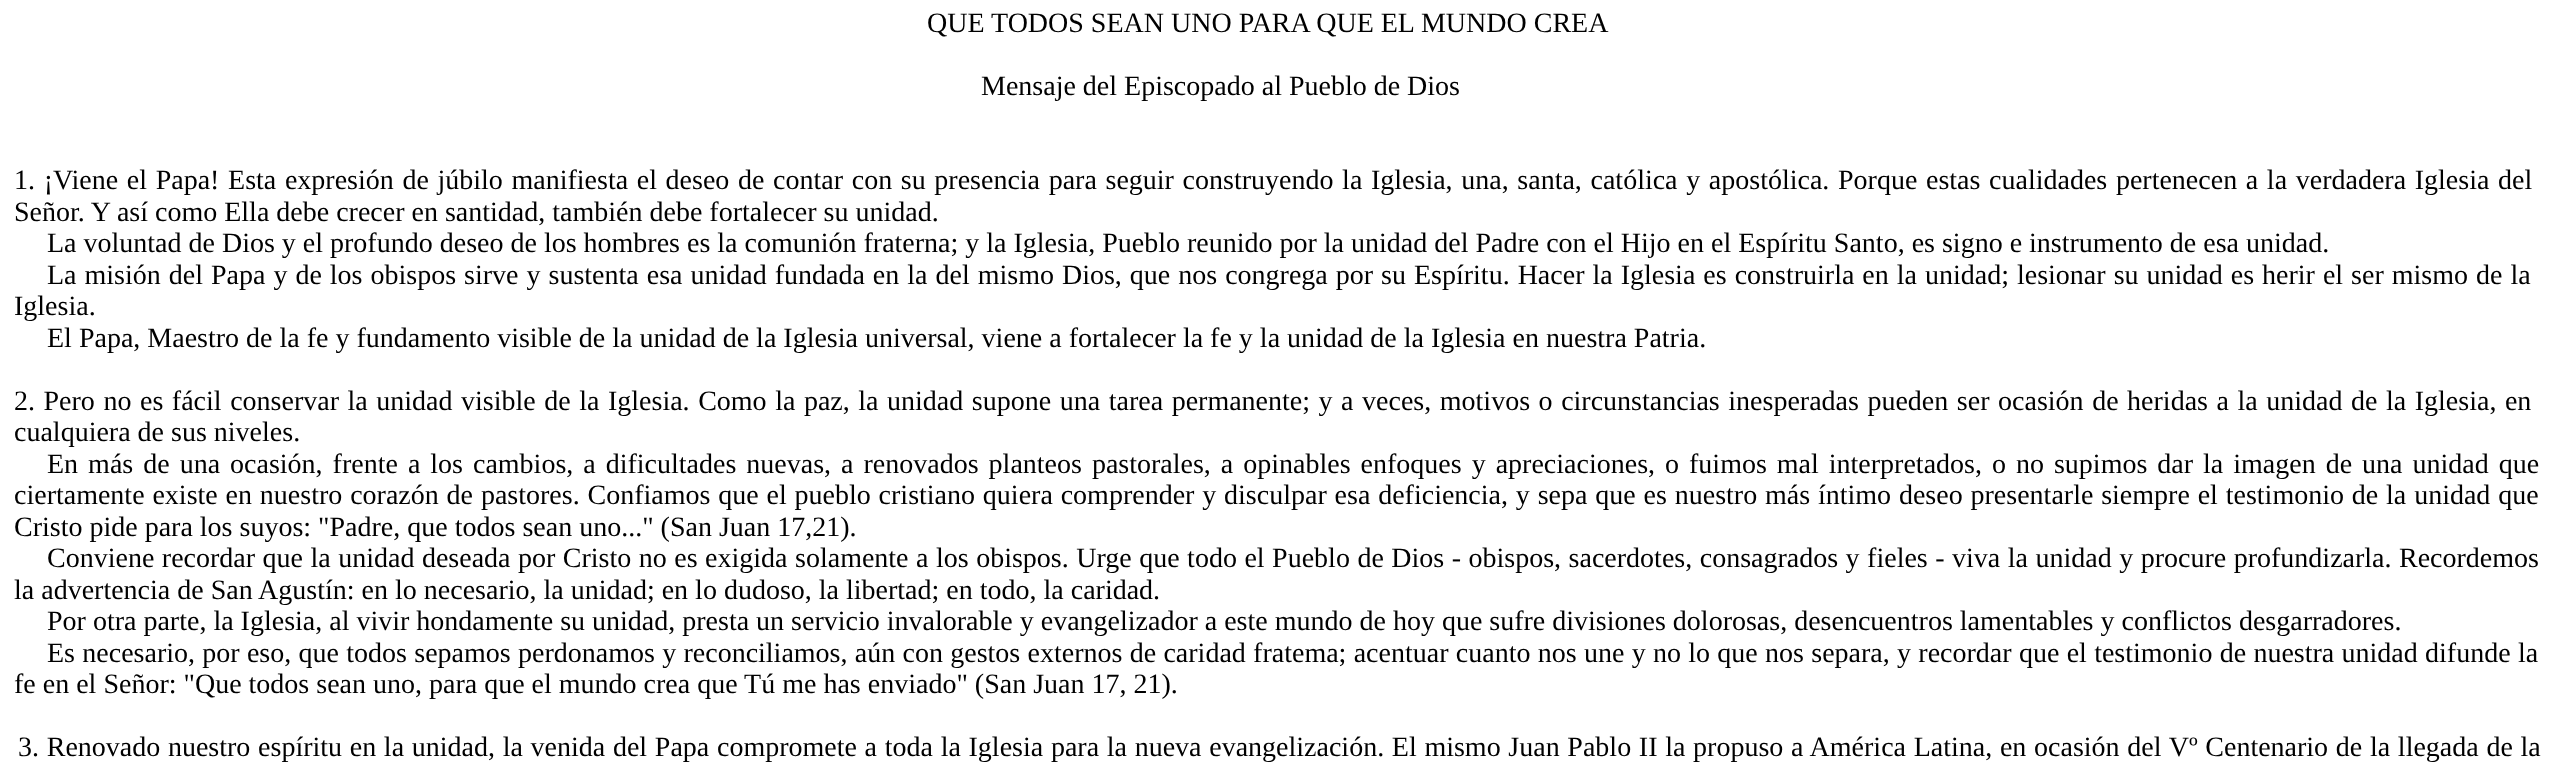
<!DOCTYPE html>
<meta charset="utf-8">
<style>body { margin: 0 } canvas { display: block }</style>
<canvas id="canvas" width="2560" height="778"></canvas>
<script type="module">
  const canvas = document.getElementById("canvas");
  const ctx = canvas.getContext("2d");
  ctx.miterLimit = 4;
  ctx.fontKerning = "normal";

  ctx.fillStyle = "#ffffff";
  ctx.fillRect(0, 0, 2560, 778);
  ctx.font = "28px Liberation Serif";
  ctx.fillStyle = "#000000";
  ctx.fillText("QUE TODOS SEAN UNO PARA QUE EL MUNDO CREA", 927, 32);
  ctx.fillText("Mensaje del Episcopado al Pueblo de Dios", 981, 95);
  ctx.wordSpacing = "1.65px";
  ctx.fillText("1. ¡Viene el Papa! Esta expresión de júbilo manifiesta el deseo de contar con su presencia para seguir construyendo la Iglesia, una, santa, católica y apostólica. Porque estas cualidades pertenecen a la verdadera Iglesia del", 14, 189);
  ctx.wordSpacing = "0px";
  ctx.fillText("Señor. Y así como Ella debe crecer en santidad, también debe fortalecer su unidad.", 14, 221);
  ctx.fillText("La voluntad de Dios y el profundo deseo de los hombres es la comunión fraterna; y la Iglesia, Pueblo reunido por la unidad del Padre con el Hijo en el Espíritu Santo, es signo e instrumento de esa unidad.", 47, 252);
  ctx.wordSpacing = "1px";
  ctx.fillText("La misión del Papa y de los obispos sirve y sustenta esa unidad fundada en la del mismo Dios, que nos congrega por su Espíritu. Hacer la Iglesia es construirla en la unidad; lesionar su unidad es herir el ser mismo de la", 47, 284);
  ctx.wordSpacing = "0px";
  ctx.fillText("Iglesia.", 14, 315);
  ctx.fillText("El Papa, Maestro de la fe y fundamento visible de la unidad de la Iglesia universal, viene a fortalecer la fe y la unidad de la Iglesia en nuestra Patria.", 47, 347);
  ctx.wordSpacing = "1.55px";
  ctx.fillText("2. Pero no es fácil conservar la unidad visible de la Iglesia. Como la paz, la unidad supone una tarea permanente; y a veces, motivos o circunstancias inesperadas pueden ser ocasión de heridas a la unidad de la Iglesia, en", 14, 410);
  ctx.wordSpacing = "0px";
  ctx.fillText("cualquiera de sus niveles.", 14, 441);
  ctx.wordSpacing = "3px";
  ctx.fillText("En más de una ocasión, frente a los cambios, a dificultades nuevas, a renovados planteos pastorales, a opinables enfoques y apreciaciones, o fuimos mal interpretados, o no supimos dar la imagen de una unidad que", 47, 473);
  ctx.wordSpacing = "0.85px";
  ctx.fillText("ciertamente existe en nuestro corazón de pastores. Confiamos que el pueblo cristiano quiera comprender y disculpar esa deficiencia, y sepa que es nuestro más íntimo deseo presentarle siempre el testimonio de la unidad que", 14, 504);
  ctx.wordSpacing = "0px";
  ctx.fillText("Cristo pide para los suyos: \"Padre, que todos sean uno...\" (San Juan 17,21).", 14, 536);
  ctx.wordSpacing = "0.5px";
  ctx.fillText("Conviene recordar que la unidad deseada por Cristo no es exigida solamente a los obispos. Urge que todo el Pueblo de Dios - obispos, sacerdotes, consagrados y fieles - viva la unidad y procure profundizarla. Recordemos", 47, 567);
  ctx.wordSpacing = "0px";
  ctx.fillText("la advertencia de San Agustín: en lo necesario, la unidad; en lo dudoso, la libertad; en todo, la caridad.", 14, 599);
  ctx.fillText("Por otra parte, la Iglesia, al vivir hondamente su unidad, presta un servicio invalorable y evangelizador a este mundo de hoy que sufre divisiones dolorosas, desencuentros lamentables y conflictos desgarradores.", 47, 630);
  ctx.wordSpacing = "0.3px";
  ctx.fillText("Es necesario, por eso, que todos sepamos perdonamos y reconciliamos, aún con gestos externos de caridad fratema; acentuar cuanto nos une y no lo que nos separa, y recordar que el testimonio de nuestra unidad difunde la", 47, 662);
  ctx.wordSpacing = "0px";
  ctx.fillText("fe en el Señor: \"Que todos sean uno, para que el mundo crea que Tú me has enviado\" (San Juan 17, 21).", 14, 693);
  ctx.wordSpacing = "0.7px";
  ctx.fillText("3. Renovado nuestro espíritu en la unidad, la venida del Papa compromete a toda la Iglesia para la nueva evangelización. El mismo Juan Pablo II la propuso a América Latina, en ocasión del Vº Centenario de la llegada de la", 18, 756);
</script>
